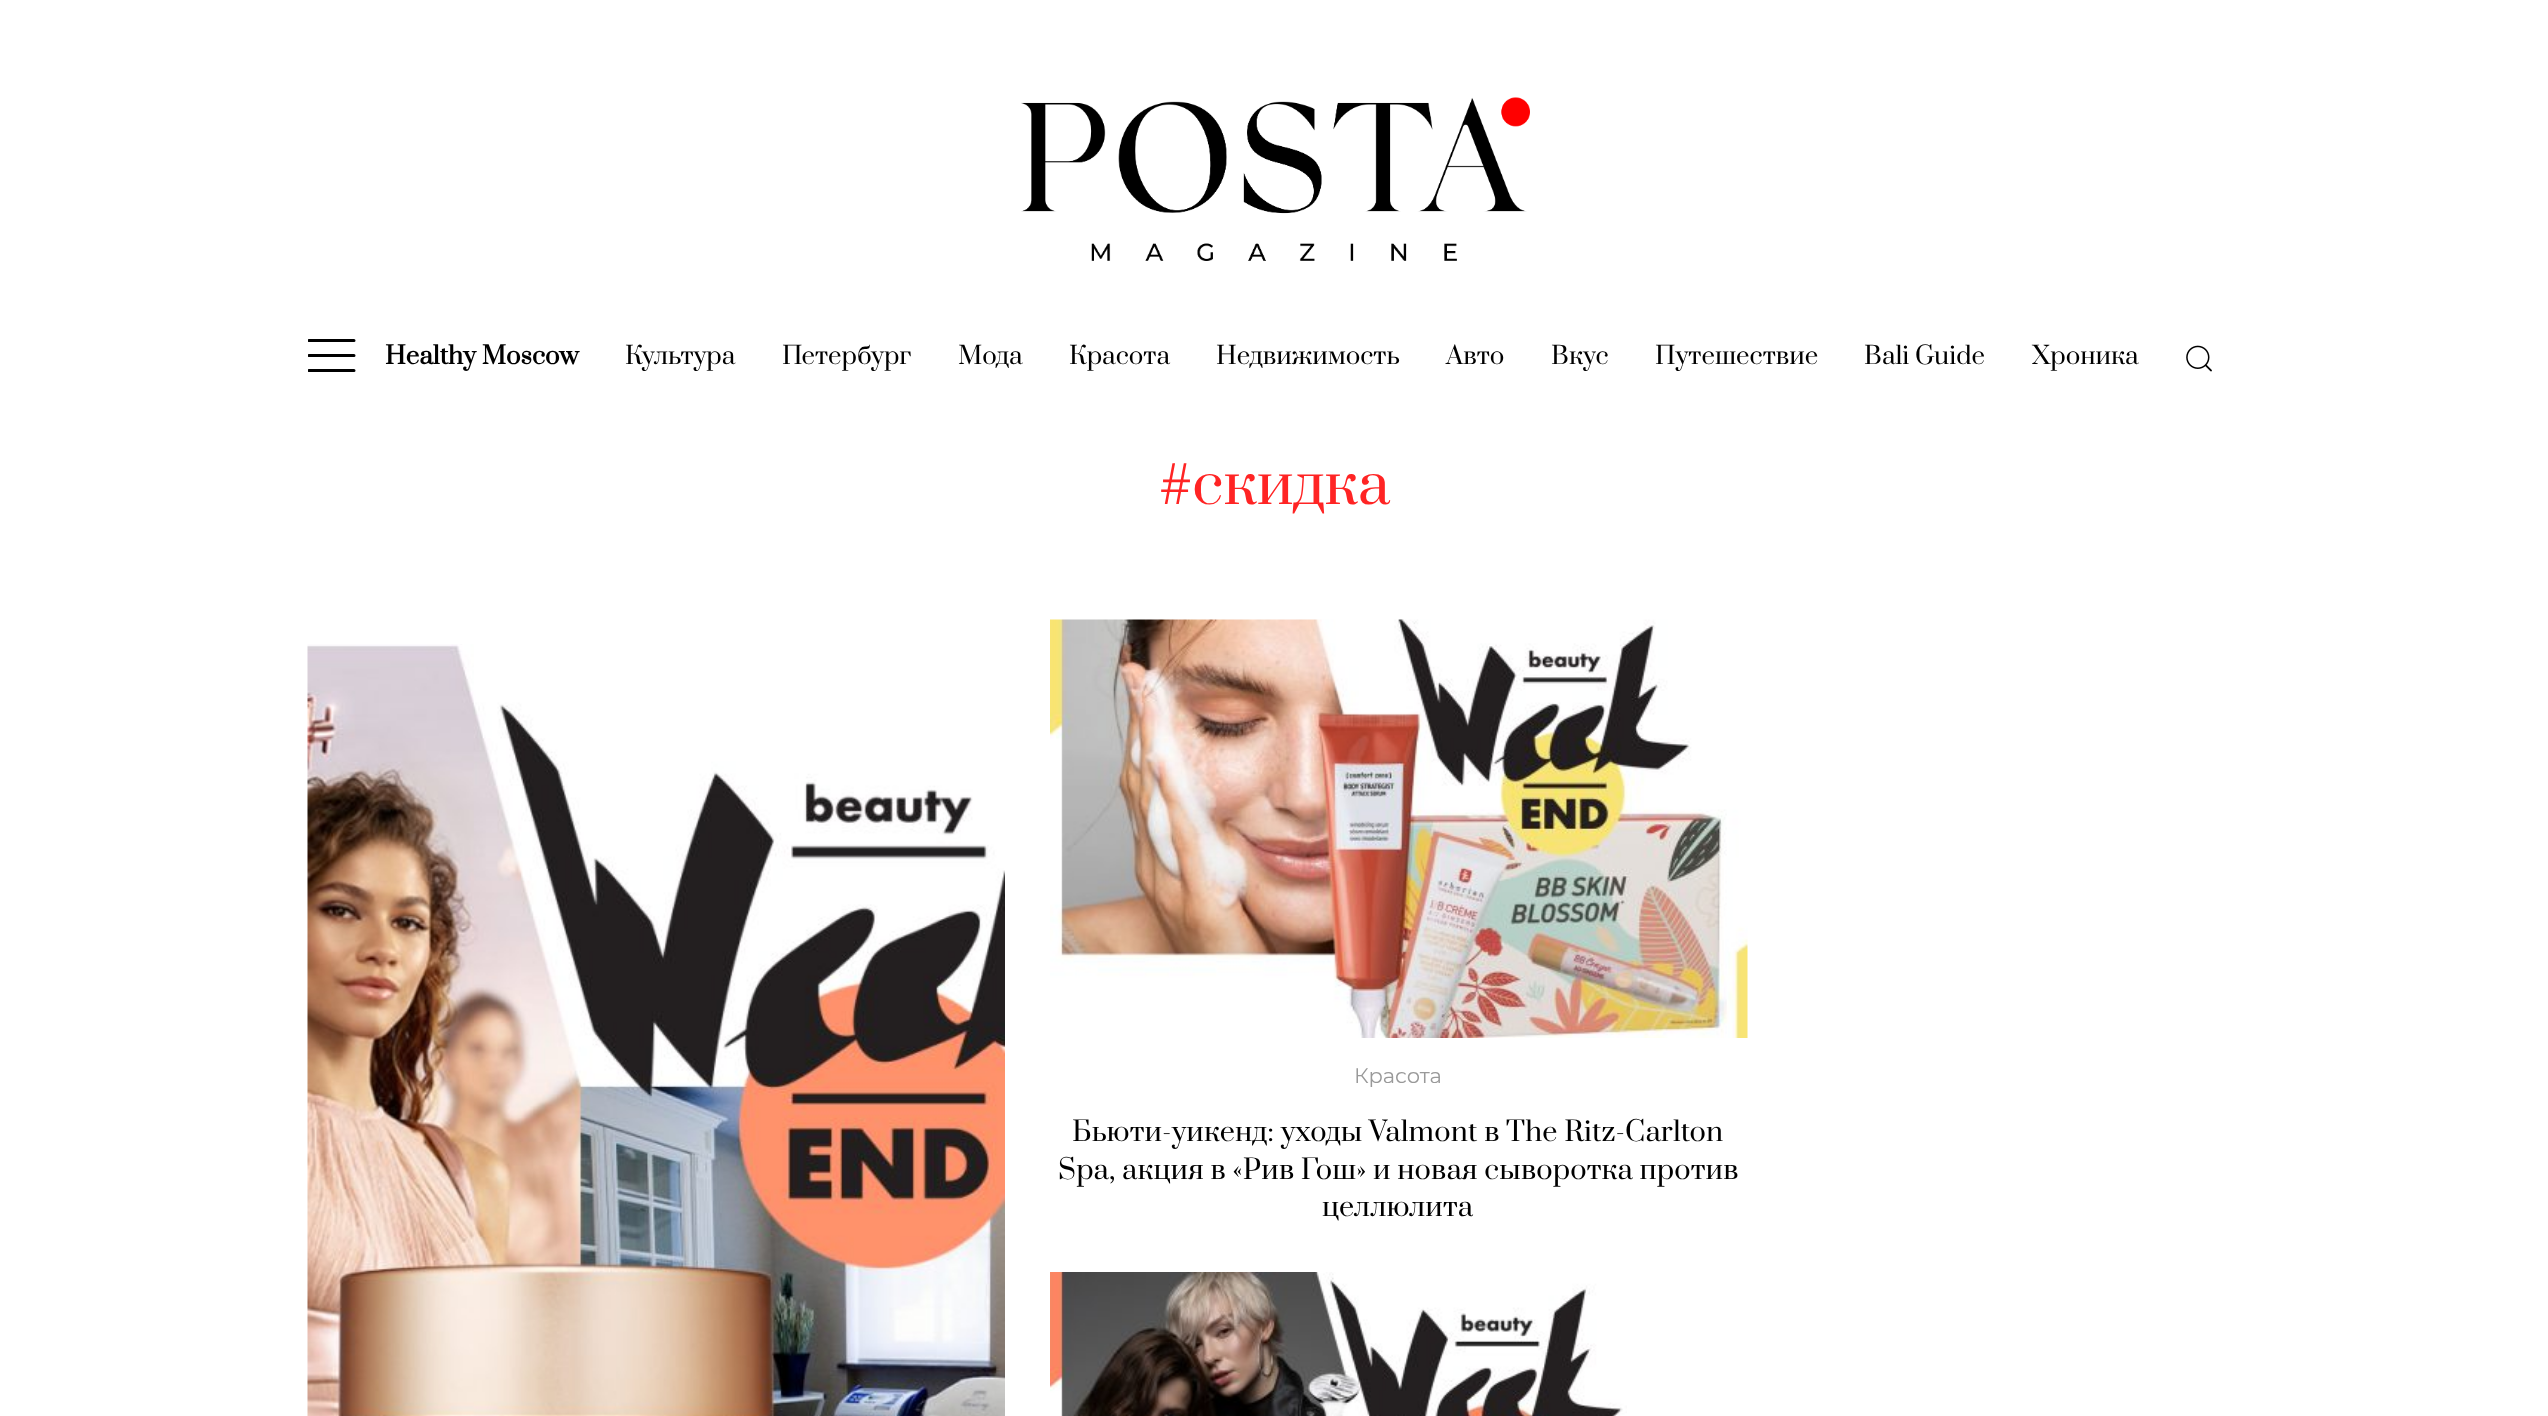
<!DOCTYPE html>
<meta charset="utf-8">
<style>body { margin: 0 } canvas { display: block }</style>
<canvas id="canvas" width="2548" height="1416"></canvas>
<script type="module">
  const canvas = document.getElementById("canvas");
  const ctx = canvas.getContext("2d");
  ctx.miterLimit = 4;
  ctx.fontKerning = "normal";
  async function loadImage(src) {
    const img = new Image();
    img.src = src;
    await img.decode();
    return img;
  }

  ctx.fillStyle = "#ffffff";
  ctx.fillRect(0, 0, 2548, 1416);
  ctx.drawImage(await loadImage("img1.png"), 1021, 97, 509, 164);
  ctx.save();
  ctx.beginPath();
  ctx.rect(308, 339, 48, 33);
  ctx.clip();
  ctx.beginPath();
  ctx.moveTo(309, 340.5);
  ctx.lineTo(354, 340.5);
  ctx.moveTo(309, 355.5);
  ctx.lineTo(354, 355.5);
  ctx.moveTo(309, 370.5);
  ctx.lineTo(354, 370.5);
  ctx.strokeStyle = "#000000";
  ctx.lineWidth = 3;
  ctx.lineCap = "round";
  ctx.stroke();
  ctx.restore();
  ctx.font = "bold 24px Prata";
  ctx.fillStyle = "#000000";
  ctx.fillText("Healthy Moscow", 385, 364);
  ctx.font = "24px Prata";
  ctx.fillText("Культура", 625, 364);
  ctx.fillText("Петербург", 782, 364);
  ctx.fillText("Мода", 958, 364);
  ctx.fillText("Красотa", 1069, 364);
  ctx.fillText("Недвижимость", 1216, 364);
  ctx.fillText("Авто", 1446, 364);
  ctx.fillText("Вкус", 1551, 364);
  ctx.fillText("Путешествие", 1655, 364);
  ctx.fillText("Bali Guide", 1864, 364);
  ctx.fillText("Хроника", 2032, 364);
  ctx.drawImage(await loadImage("img2.png"), 2186, 345, 26, 27);
  ctx.font = "57px Prata";
  ctx.fillStyle = "#ff2424";
  ctx.fillText("#скидка", 1159, 504);
  ctx.drawImage(await loadImage("img3.png"), 307, 644, 698, 772);
  ctx.drawImage(await loadImage("img4.png"), 1050, 619, 698, 419);
  ctx.font = "21px Montserrat";
  ctx.fillStyle = "#999999";
  ctx.fillText("Красотa", 1354, 1083);
  ctx.letterSpacing = "0.15px";
  ctx.font = "27px Prata";
  ctx.fillStyle = "#000000";
  ctx.fillText("Бьюти-уикенд: уходы Valmont в The Ritz-Carlton", 1072, 1141);
  ctx.fillText("Spa, акция в «Рив Гош» и новая сыворотка против", 1058, 1179);
  ctx.fillText("целлюлита", 1322, 1216);
  ctx.drawImage(await loadImage("img5.png"), 1050, 1272, 577, 144);
</script>
